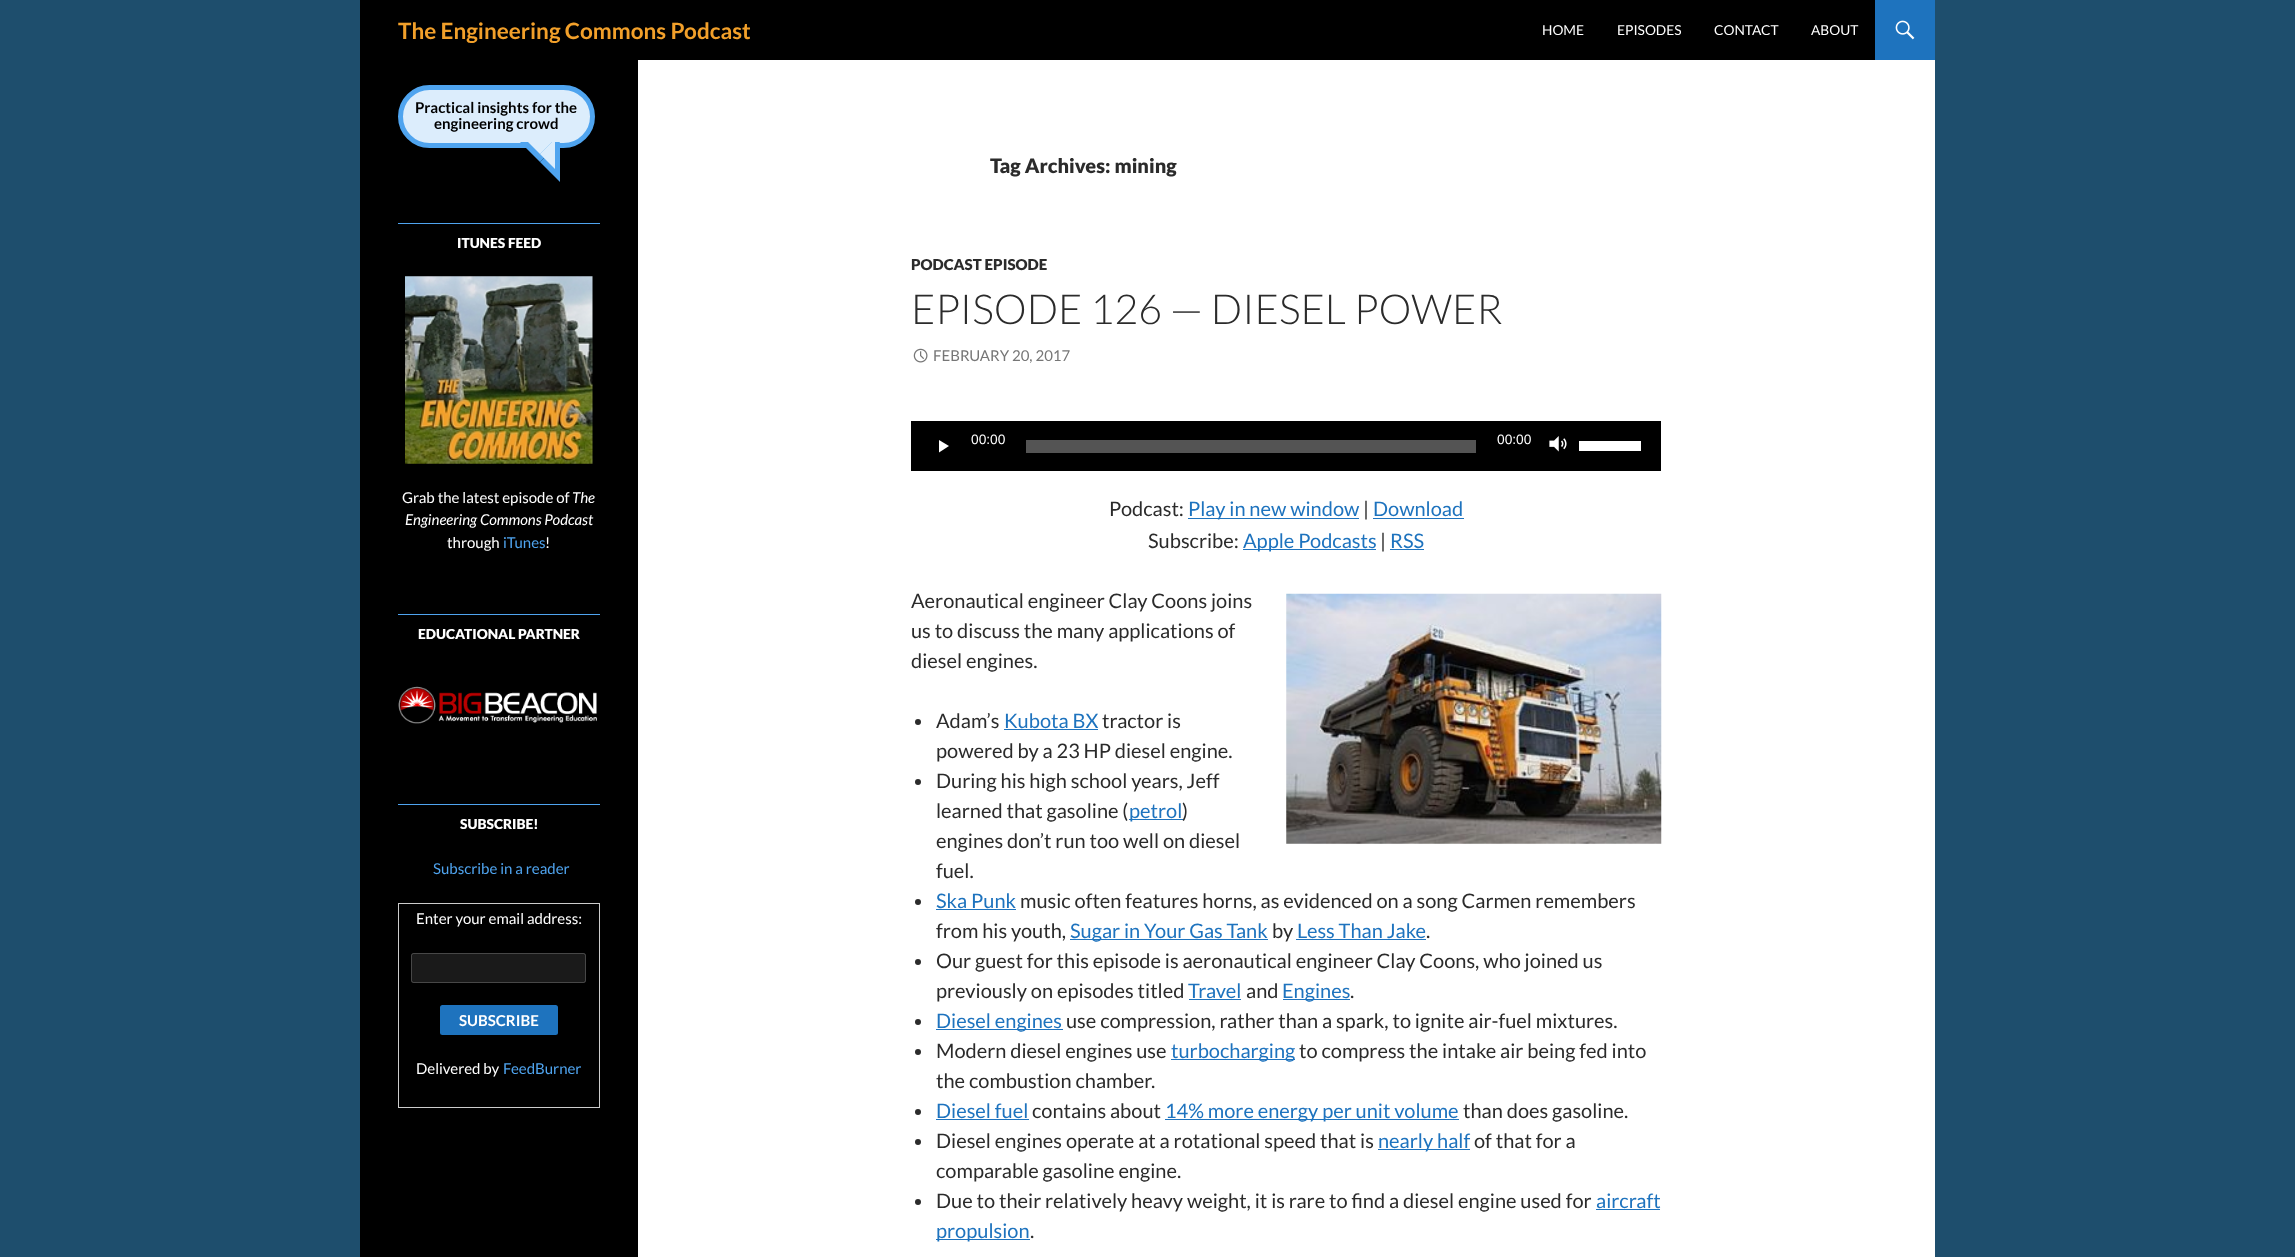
<!DOCTYPE html>
<meta charset="utf-8">
<style>body { margin: 0 } canvas { display: block }</style>
<canvas id="canvas" width="2295" height="1257"></canvas>
<script type="module">
  const canvas = document.getElementById("canvas");
  const ctx = canvas.getContext("2d");
  ctx.miterLimit = 4;
  ctx.fontKerning = "normal";
  async function loadImage(src) {
    const img = new Image();
    img.src = src;
    await img.decode();
    return img;
  }

  ctx.fillStyle = "#1e4e6d";
  ctx.fillRect(0, 0, 2295, 1257);
  ctx.fillStyle = "#ffffff";
  ctx.fillRect(638, 60, 1297, 1197);
  ctx.fillStyle = "#000000";
  ctx.fillRect(360, 0, 1515, 60);
  ctx.save();
  ctx.beginPath();
  ctx.rect(398, 0, 352, 60);
  ctx.clip();
  ctx.font = "bold 22.5px Lato";
  ctx.fillStyle = "#f2a02a";
  ctx.fillText("The Engineering Commons Podcast", 398, 39);
  ctx.restore();
  ctx.font = "13.75px Lato";
  ctx.fillStyle = "#ffffff";
  ctx.fillText("HOME", 1542, 35);
  ctx.fillText("EPISODES", 1617, 35);
  ctx.fillText("CONTACT", 1714, 35);
  ctx.fillText("ABOUT", 1811, 35);
  ctx.fillStyle = "#1e73be";
  ctx.fillRect(1875, 0, 60, 60);
  ctx.drawImage(await loadImage("img1.png"), 1895, 20, 20, 20);
  ctx.fillStyle = "#000000";
  ctx.fillRect(360, 60, 278, 1197);
  ctx.fillStyle = "#dcedfc";
  ctx.beginPath();
  ctx.roundRect(400.5, 87.5, 192, 58, 29);
  ctx.fill();
  ctx.strokeStyle = "#4fa4ef";
  ctx.lineWidth = 5;
  ctx.stroke();
  ctx.font = "bold 15px Lato";
  ctx.fillStyle = "#000000";
  ctx.fillText("Practical insights for the", 415, 113);
  ctx.fillText("engineering crowd", 434, 129);
  ctx.fillStyle = "#4fa4ef";
  ctx.beginPath();
  ctx.moveTo(520, 142);
  ctx.lineTo(560, 142);
  ctx.lineTo(540, 162);
  ctx.closePath();
  ctx.fill();
  ctx.beginPath();
  ctx.moveTo(560, 142);
  ctx.lineTo(560, 182);
  ctx.lineTo(540, 162);
  ctx.closePath();
  ctx.fill();
  ctx.fillStyle = "#dcedfc";
  ctx.beginPath();
  ctx.moveTo(525, 139);
  ctx.lineTo(555, 139);
  ctx.lineTo(540, 154);
  ctx.closePath();
  ctx.fill();
  ctx.beginPath();
  ctx.moveTo(555, 139);
  ctx.lineTo(555, 169);
  ctx.lineTo(540, 154);
  ctx.closePath();
  ctx.fill();
  ctx.fillStyle = "#4fa4ef";
  ctx.fillRect(398, 223, 202, 1);
  ctx.font = "900 13.75px Lato";
  ctx.fillStyle = "#ffffff";
  ctx.fillText("ITUNES FEED", 457, 248);
  ctx.drawImage(await loadImage("img2.png"), 405, 276, 188, 188);
  ctx.font = "15px Lato";
  ctx.fillText("Grab the latest episode of", 402, 503);
  ctx.font = "italic 15px Lato";
  ctx.fillText("The", 572, 503);
  ctx.fillText("Engineering Commons Podcast", 405, 525);
  ctx.font = "15px Lato";
  ctx.fillText("through", 447, 548);
  ctx.fillStyle = "#4fa4ef";
  ctx.fillText("iTunes", 503, 548);
  ctx.fillStyle = "#ffffff";
  ctx.fillText("!", 545, 548);
  ctx.fillStyle = "#4fa4ef";
  ctx.fillRect(398, 614, 202, 1);
  ctx.font = "900 13.75px Lato";
  ctx.fillStyle = "#ffffff";
  ctx.fillText("EDUCATIONAL PARTNER", 418, 639);
  ctx.drawImage(await loadImage("img3.png"), 398, 686, 199, 38);
  ctx.fillStyle = "#4fa4ef";
  ctx.fillRect(398, 804, 202, 1);
  ctx.fillStyle = "#ffffff";
  ctx.fillText("SUBSCRIBE!", 460, 829);
  ctx.font = "15px Lato";
  ctx.fillStyle = "#4fa4ef";
  ctx.fillText("Subscribe in a reader", 433, 874);
  ctx.strokeStyle = "#cccccc";
  ctx.lineWidth = 1;
  ctx.strokeRect(398.5, 903.5, 201, 204);
  ctx.fillStyle = "#ffffff";
  ctx.fillText("Enter your email address:", 416, 924);
  ctx.fillStyle = "#1a1a1a";
  ctx.beginPath();
  ctx.roundRect(411, 953, 175, 30, 2.5);
  ctx.fill();
  ctx.beginPath();
  ctx.roundRect(411.5, 953.5, 174, 29, 2);
  ctx.strokeStyle = "rgba(255, 255, 255, 0.2)";
  ctx.stroke();
  ctx.fillStyle = "#1e73be";
  ctx.beginPath();
  ctx.roundRect(440, 1005, 118, 30, 2.5);
  ctx.fill();
  ctx.font = "bold 15px Lato";
  ctx.fillStyle = "#ffffff";
  ctx.fillText("SUBSCRIBE", 459, 1026);
  ctx.font = "15px Lato";
  ctx.fillText("Delivered by", 416, 1074);
  ctx.fillStyle = "#4fa4ef";
  ctx.fillText("FeedBurner", 503, 1074);
  ctx.font = "900 20px Lato";
  ctx.fillStyle = "#2b2b2b";
  ctx.fillText("Tag Archives: mining", 990, 173);
  ctx.font = "900 15px Lato";
  ctx.fillText("PODCAST EPISODE", 911, 270);
  ctx.font = "300 41.25px Lato";
  ctx.fillText("EPISODE 126 — DIESEL POWER", 911, 324);
  ctx.drawImage(await loadImage("img4.png"), 913, 348, 15, 15);
  ctx.font = "15px Lato";
  ctx.fillStyle = "#767676";
  ctx.fillText("FEBRUARY 20, 2017", 933, 361);
  ctx.fillStyle = "#000000";
  ctx.fillRect(911, 421, 750, 50);
  ctx.fillStyle = "#ffffff";
  ctx.beginPath();
  ctx.moveTo(939, 440);
  ctx.lineTo(949, 446);
  ctx.lineTo(939, 452.5);
  ctx.closePath();
  ctx.fill();
  ctx.font = "13.75px Liberation Sans";
  ctx.fillText("00:00", 971, 444);
  ctx.fillStyle = "#545454";
  ctx.fillRect(1026, 440, 450, 13);
  ctx.fillStyle = "#ffffff";
  ctx.fillText("00:00", 1497, 444);
  ctx.drawImage(await loadImage("img5.png"), 1549, 436, 18, 16);
  ctx.fillRect(1579, 441, 62, 10);
  ctx.font = "20px Lato";
  ctx.fillStyle = "#2b2b2b";
  ctx.fillText("Podcast:", 1109, 516);
  ctx.fillStyle = "#1e73be";
  ctx.fillRect(1188, 518, 171, 1);
  ctx.fillText("Play in new window", 1188, 516);
  ctx.fillStyle = "#2b2b2b";
  ctx.fillText("|", 1363, 516);
  ctx.fillStyle = "#1e73be";
  ctx.fillText("Download", 1373, 516);
  ctx.fillRect(1373, 518, 91, 1);
  ctx.fillStyle = "#2b2b2b";
  ctx.fillText("Subscribe:", 1148, 548);
  ctx.fillStyle = "#1e73be";
  ctx.fillRect(1243, 549, 133, 1);
  ctx.fillText("Apple Podcasts", 1243, 548);
  ctx.fillStyle = "#2b2b2b";
  ctx.fillText("|", 1380, 548);
  ctx.fillStyle = "#1e73be";
  ctx.fillText("RSS", 1390, 548);
  ctx.fillRect(1390, 549, 34, 1);
  ctx.fillStyle = "#2b2b2b";
  ctx.fillText("Aeronautical engineer Clay Coons joins", 911, 608);
  ctx.drawImage(await loadImage("img6.png"), 1286, 593, 376, 251);
  ctx.fillText("us to discuss the many applications of", 911, 638);
  ctx.fillText("diesel engines.", 911, 668);
  ctx.beginPath();
  ctx.arc(918, 722, 3, 0, Math.PI * 2);
  ctx.fill();
  ctx.fillText("Adam’s", 936, 728);
  ctx.fillStyle = "#1e73be";
  ctx.fillText("Kubota BX", 1004, 728);
  ctx.fillRect(1004, 729, 94, 1);
  ctx.fillStyle = "#2b2b2b";
  ctx.fillText("tractor is", 1102, 728);
  ctx.fillText("powered by a 23 HP diesel engine.", 936, 758);
  ctx.beginPath();
  ctx.arc(918, 782, 3, 0, Math.PI * 2);
  ctx.fill();
  ctx.fillText("During his high school years, Jeff", 936, 788);
  ctx.fillText("learned that gasoline (", 936, 818);
  ctx.fillStyle = "#1e73be";
  ctx.fillRect(1129, 819, 54, 1);
  ctx.fillText("petrol", 1129, 818);
  ctx.fillStyle = "#2b2b2b";
  ctx.fillText(")", 1182, 818);
  ctx.fillText("engines don’t run too well on diesel", 936, 848);
  ctx.fillText("fuel.", 936, 878);
  ctx.beginPath();
  ctx.arc(918, 902, 3, 0, Math.PI * 2);
  ctx.fill();
  ctx.fillStyle = "#1e73be";
  ctx.fillText("Ska Punk", 936, 908);
  ctx.fillRect(936, 909, 80, 1);
  ctx.fillStyle = "#2b2b2b";
  ctx.fillText("music often features horns, as evidenced on a song Carmen remembers", 1020, 908);
  ctx.fillText("from his youth,", 936, 938);
  ctx.fillStyle = "#1e73be";
  ctx.fillRect(1070, 939, 198, 1);
  ctx.fillText("Sugar in Your Gas Tank", 1070, 938);
  ctx.fillStyle = "#2b2b2b";
  ctx.fillText("by", 1272, 938);
  ctx.fillStyle = "#1e73be";
  ctx.fillText("Less Than Jake", 1297, 938);
  ctx.fillRect(1296, 939, 130, 1);
  ctx.fillStyle = "#2b2b2b";
  ctx.fillText(".", 1426, 938);
  ctx.beginPath();
  ctx.arc(918, 962, 3, 0, Math.PI * 2);
  ctx.fill();
  ctx.fillText("Our guest for this episode is aeronautical engineer Clay Coons, who joined us", 936, 968);
  ctx.fillText("previously on episodes titled", 936, 998);
  ctx.fillStyle = "#1e73be";
  ctx.fillText("Travel", 1188, 998);
  ctx.fillRect(1189, 999, 52, 1);
  ctx.fillStyle = "#2b2b2b";
  ctx.fillText("and", 1246, 998);
  ctx.fillStyle = "#1e73be";
  ctx.fillRect(1283, 999, 67, 1);
  ctx.fillText("Engines", 1282, 998);
  ctx.fillStyle = "#2b2b2b";
  ctx.fillText(".", 1350, 998);
  ctx.beginPath();
  ctx.arc(918, 1022, 3, 0, Math.PI * 2);
  ctx.fill();
  ctx.fillStyle = "#1e73be";
  ctx.fillRect(936, 1029, 127, 1);
  ctx.fillText("Diesel engines", 936, 1028);
  ctx.fillStyle = "#2b2b2b";
  ctx.fillText("use compression, rather than a spark, to ignite air-fuel mixtures.", 1066, 1028);
  ctx.beginPath();
  ctx.arc(918, 1052, 3, 0, Math.PI * 2);
  ctx.fill();
  ctx.fillText("Modern diesel engines use", 936, 1058);
  ctx.fillStyle = "#1e73be";
  ctx.fillRect(1171, 1059, 124, 1);
  ctx.fillText("turbocharging", 1171, 1058);
  ctx.fillStyle = "#2b2b2b";
  ctx.fillText("to compress the intake air being fed into", 1299, 1058);
  ctx.fillText("the combustion chamber.", 936, 1088);
  ctx.beginPath();
  ctx.arc(918, 1112, 3, 0, Math.PI * 2);
  ctx.fill();
  ctx.fillStyle = "#1e73be";
  ctx.fillText("Diesel fuel", 936, 1118);
  ctx.fillRect(936, 1119, 93, 1);
  ctx.fillStyle = "#2b2b2b";
  ctx.fillText("contains about", 1032, 1118);
  ctx.fillStyle = "#1e73be";
  ctx.fillRect(1165, 1119, 294, 1);
  ctx.fillText("14% more energy per unit volume", 1165, 1118);
  ctx.fillStyle = "#2b2b2b";
  ctx.fillText("than does gasoline.", 1463, 1118);
  ctx.beginPath();
  ctx.arc(918, 1142, 3, 0, Math.PI * 2);
  ctx.fill();
  ctx.fillText("Diesel engines operate at a rotational speed that is", 936, 1148);
  ctx.fillStyle = "#1e73be";
  ctx.fillRect(1378, 1149, 92, 1);
  ctx.fillText("nearly half", 1378, 1148);
  ctx.fillStyle = "#2b2b2b";
  ctx.fillText("of that for a", 1474, 1148);
  ctx.fillText("comparable gasoline engine.", 936, 1178);
  ctx.beginPath();
  ctx.arc(918, 1202, 3, 0, Math.PI * 2);
  ctx.fill();
  ctx.fillText("Due to their relatively heavy weight, it is rare to find a diesel engine used for", 936, 1208);
  ctx.fillStyle = "#1e73be";
  ctx.fillText("aircraft", 1596, 1208);
  ctx.fillRect(1596, 1209, 64, 1);
  ctx.fillRect(936, 1239, 94, 1);
  ctx.fillText("propulsion", 936, 1238);
  ctx.fillStyle = "#2b2b2b";
  ctx.fillText(".", 1030, 1238);
</script>
